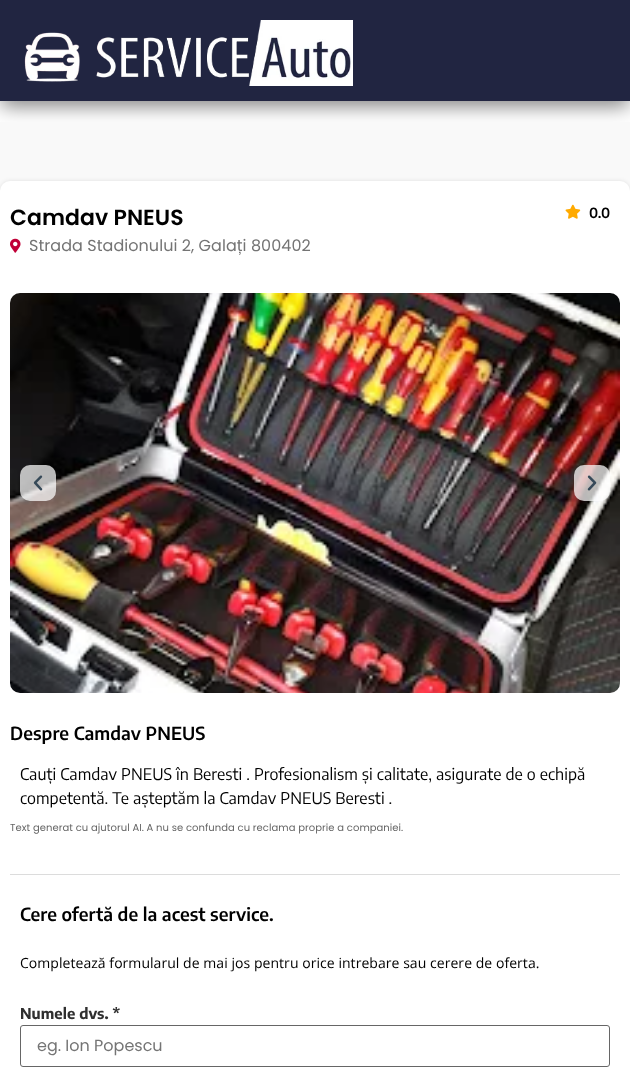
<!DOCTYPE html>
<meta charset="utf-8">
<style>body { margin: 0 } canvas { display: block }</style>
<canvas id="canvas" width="630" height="1077"></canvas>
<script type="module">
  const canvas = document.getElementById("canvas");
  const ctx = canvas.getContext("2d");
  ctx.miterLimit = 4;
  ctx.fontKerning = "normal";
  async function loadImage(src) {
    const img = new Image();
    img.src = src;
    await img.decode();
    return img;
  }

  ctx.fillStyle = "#ffffff";
  ctx.fillRect(0, 0, 630, 1077);
  ctx.fillStyle = "rgba(0, 0, 0, 0.5)";
  ctx.filter = "blur(10px)";
  ctx.beginPath();
  ctx.rect(1, 7, 628, 99);
  ctx.fill();
  ctx.filter = "none";
  ctx.fillStyle = "#212541";
  ctx.fillRect(0, 0, 630, 101);
  ctx.drawImage(await loadImage("img1.png"), 24, 20, 329, 66);
  ctx.fillStyle = "#f9f9f9";
  ctx.fillRect(0, 122, 630, 69);
  ctx.fillStyle = "rgba(0, 0, 0, 0.1)";
  ctx.filter = "blur(2px)";
  ctx.beginPath();
  ctx.roundRect(0, 181, 630, 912, 10);
  ctx.fill();
  ctx.filter = "none";
  ctx.fillStyle = "#ffffff";
  ctx.beginPath();
  ctx.roundRect(0, 181, 630, 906, 10);
  ctx.fill();
  ctx.letterSpacing = "0.05px";
  ctx.font = "600 22px Poppins";
  ctx.fillStyle = "#000000";
  ctx.fillText("Camdav PNEUS", 10, 225);
  ctx.drawImage(await loadImage("img2.png"), 565, 204, 16, 15);
  ctx.font = "600 14px Encode Sans Condensed";
  ctx.fillText("0.0", 589, 218);
  ctx.drawImage(await loadImage("img3.png"), 10, 238, 11, 15);
  ctx.font = "16px Poppins";
  ctx.fillStyle = "#747474";
  ctx.fillText("Strada Stadionului 2, Galați 800402", 29, 251);
  ctx.drawImage(await loadImage("img4.png"), 10, 293, 610, 400);
  ctx.fillStyle = "rgba(255, 255, 255, 0.72)";
  ctx.beginPath();
  ctx.roundRect(20, 465, 36, 36, 10);
  ctx.fill();
  ctx.drawImage(await loadImage("img5.png"), 33, 475, 10, 16);
  ctx.beginPath();
  ctx.roundRect(574, 465, 36, 36, 10);
  ctx.fill();
  ctx.drawImage(await loadImage("img6.png"), 587, 475, 10, 16);
  ctx.font = "600 18px Encode Sans Condensed";
  ctx.fillStyle = "#000000";
  ctx.fillText("Despre Camdav PNEUS", 10, 740);
  ctx.font = "16px Encode Sans Condensed";
  ctx.fillText("Cauți Camdav PNEUS în Beresti . Profesionalism și calitate, asigurate de o echipă", 20, 780);
  ctx.fillText("competentă. Te așteptăm la Camdav PNEUS Beresti .", 20, 804);
  ctx.font = "10px Poppins";
  ctx.fillStyle = "#666666";
  ctx.fillText("Text generat cu ajutorul AI. A nu se confunda cu reclama proprie a companiei.", 10, 831);
  ctx.fillStyle = "#dcdcdc";
  ctx.fillRect(10, 874, 610, 1);
  ctx.font = "600 18px Encode Sans Condensed";
  ctx.fillStyle = "#000000";
  ctx.fillText("Cere ofertă de la acest service.", 20, 921);
  ctx.font = "14px Open Sans";
  ctx.fillText("Completează formularul de mai jos pentru orice intrebare sau cerere de oferta.", 20, 968);
  ctx.font = "bold 15px Encode Sans Condensed";
  ctx.fillStyle = "#2f2f2f";
  ctx.fillText("Numele dvs. *", 20, 1019);
  ctx.beginPath();
  ctx.roundRect(20.5, 1025.5, 589, 41, 2.5);
  ctx.strokeStyle = "#666666";
  ctx.stroke();
  ctx.letterSpacing = "0px";
  ctx.font = "16px Poppins";
  ctx.fillStyle = "#747474";
  ctx.fillText("eg. Ion Popescu", 37, 1051);
</script>
